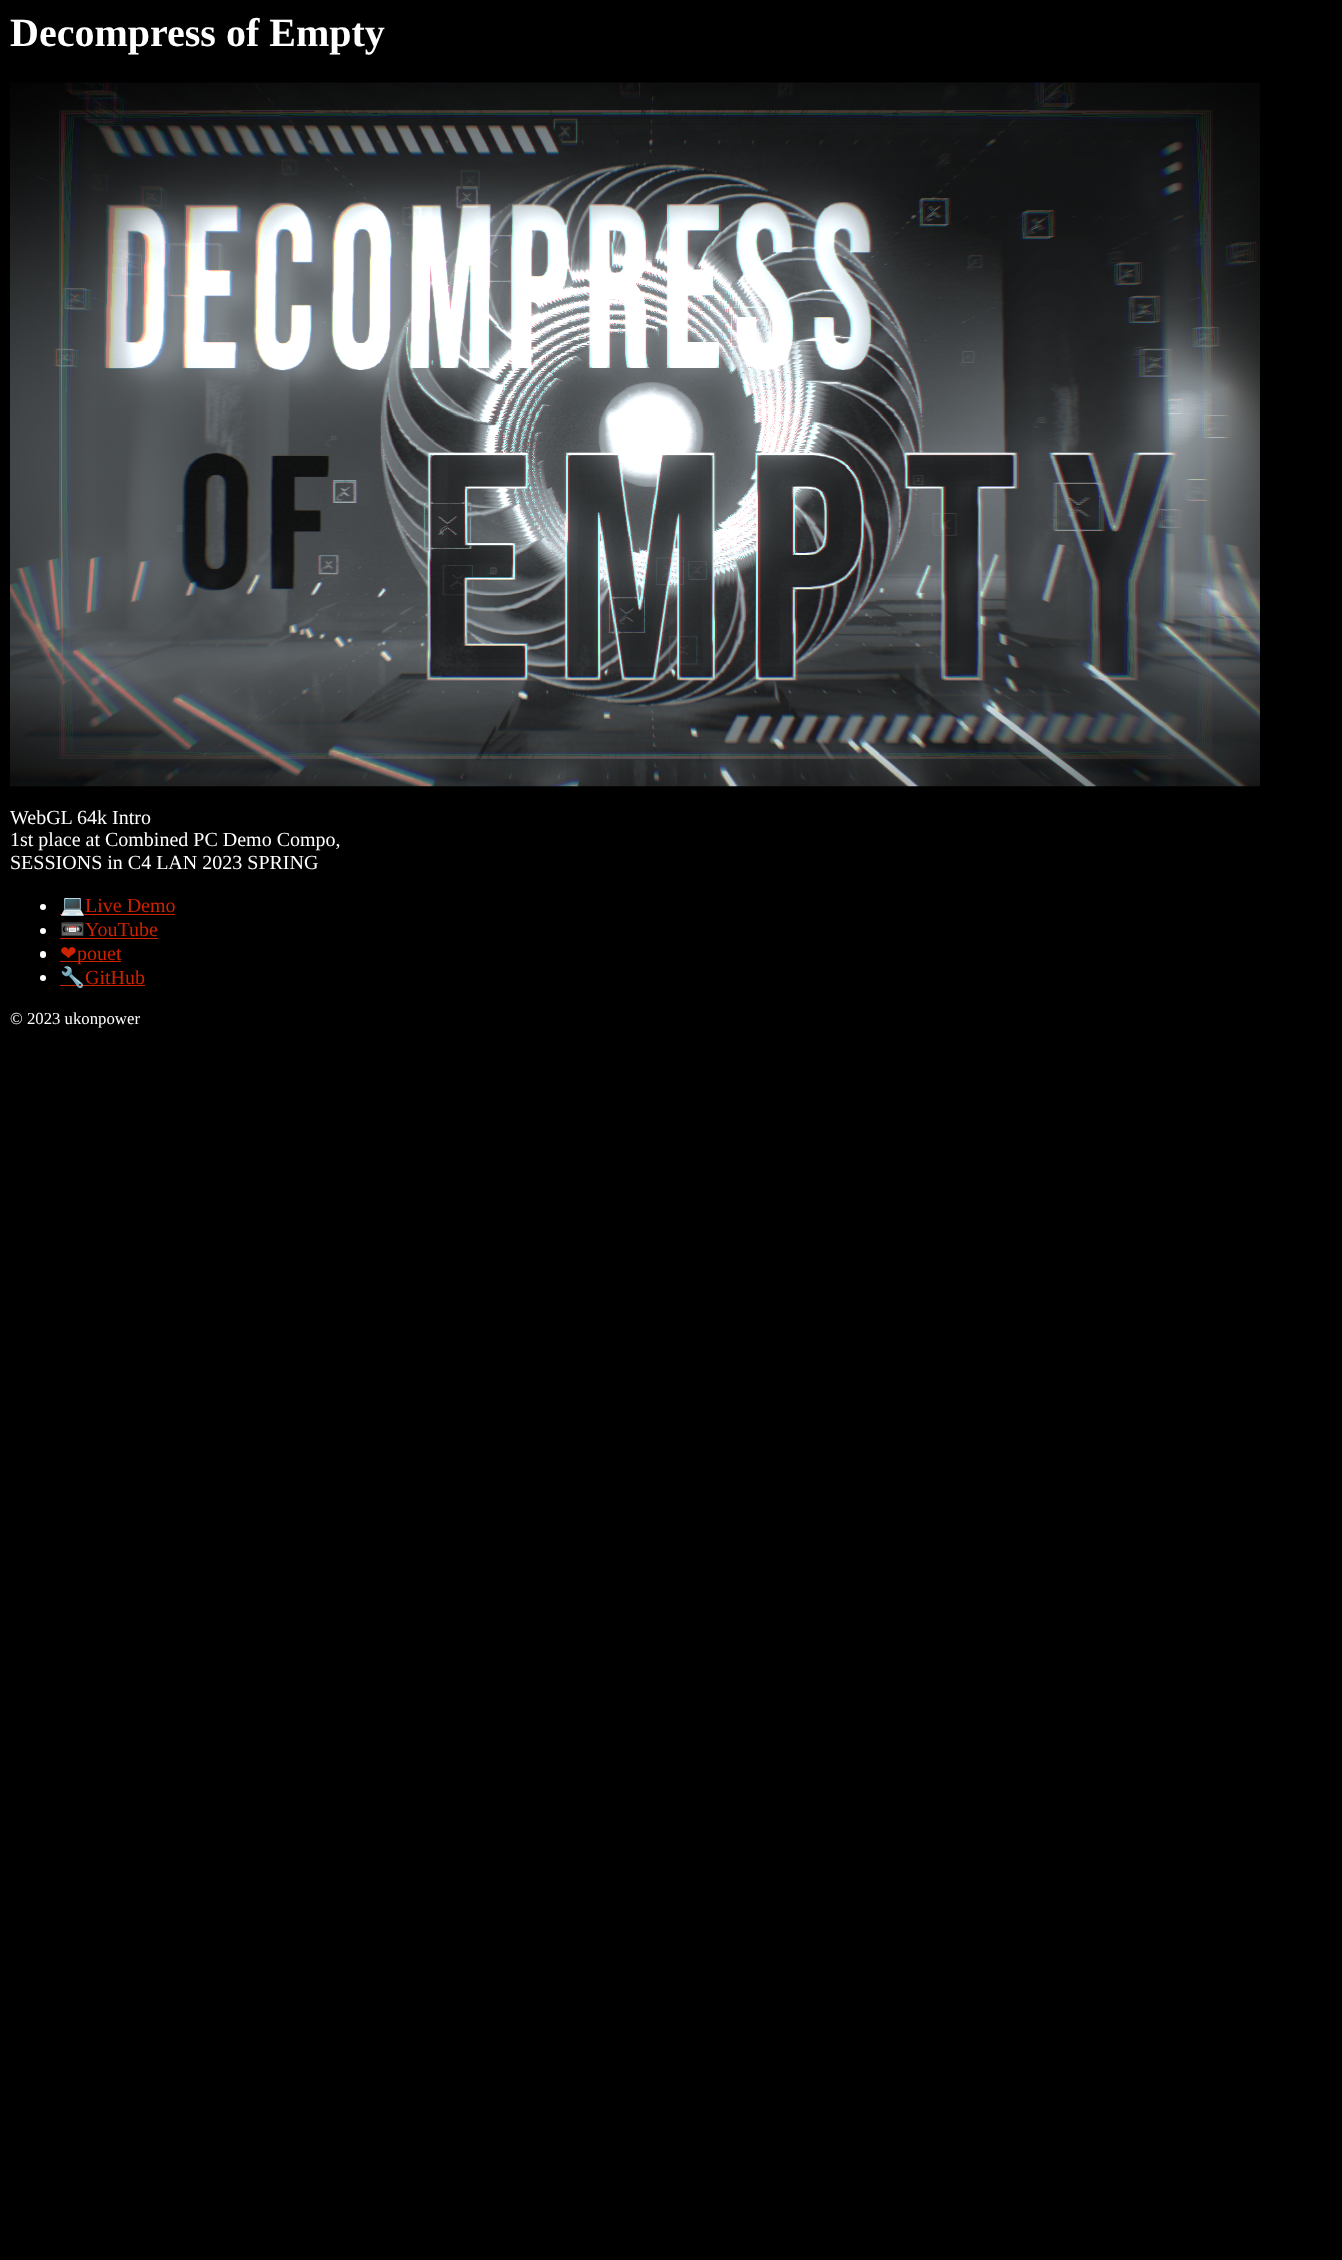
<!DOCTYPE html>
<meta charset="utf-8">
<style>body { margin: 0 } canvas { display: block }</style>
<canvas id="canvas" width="1342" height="2260"></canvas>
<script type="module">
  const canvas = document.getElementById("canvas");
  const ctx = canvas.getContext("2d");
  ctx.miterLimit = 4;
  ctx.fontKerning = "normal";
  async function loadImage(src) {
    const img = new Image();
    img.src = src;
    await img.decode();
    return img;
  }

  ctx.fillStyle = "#000000";
  ctx.fillRect(0, 0, 1342, 2260);
  ctx.font = "bold 40px Liberation Serif";
  ctx.fillStyle = "#ffffff";
  ctx.fillText("Decompress of Empty", 10, 46);
  ctx.drawImage(await loadImage("img1.png"), 10, 82, 1250, 705);
  ctx.font = "20px Liberation Serif";
  ctx.fillText("WebGL 64k Intro", 10, 824);
  ctx.fillText("1st place at Combined PC Demo Compo,", 10, 846);
  ctx.fillText("SESSIONS in C4 LAN 2023 SPRING", 10, 869);
  ctx.beginPath();
  ctx.arc(43, 907, 3, 0, Math.PI * 2);
  ctx.fill();
  ctx.fillStyle = "#cc2200";
  ctx.fillRect(60, 914, 115, 1);
  ctx.font = "20px Noto Color Emoji";
  ctx.fillText("💻", 60, 912);
  ctx.font = "20px Liberation Serif";
  ctx.fillText("Live Demo", 85, 912);
  ctx.fillStyle = "#ffffff";
  ctx.beginPath();
  ctx.arc(43, 931, 3, 0, Math.PI * 2);
  ctx.fill();
  ctx.fillStyle = "#cc2200";
  ctx.fillRect(60, 938, 98, 1);
  ctx.font = "20px Noto Color Emoji";
  ctx.fillText("📼", 60, 936);
  ctx.font = "20px Liberation Serif";
  ctx.fillText("YouTube", 85, 936);
  ctx.fillStyle = "#ffffff";
  ctx.beginPath();
  ctx.roundRect(40, 951, 6, 7, 3);
  ctx.fill();
  ctx.font = "20px DejaVu Sans";
  ctx.fillStyle = "#cc2200";
  ctx.fillText("❤", 60, 960);
  ctx.fillRect(60, 961, 61, 1);
  ctx.font = "20px Liberation Serif";
  ctx.fillText("pouet", 77, 960);
  ctx.fillStyle = "#ffffff";
  ctx.beginPath();
  ctx.arc(43, 978, 3, 0, Math.PI * 2);
  ctx.fill();
  ctx.fillStyle = "#cc2200";
  ctx.fillRect(60, 985, 85, 1);
  ctx.font = "20px Noto Color Emoji";
  ctx.fillText("🔧", 60, 984);
  ctx.font = "20px Liberation Serif";
  ctx.fillText("GitHub", 85, 984);
  ctx.font = "16.75px Liberation Serif";
  ctx.fillStyle = "#ffffff";
  ctx.fillText("© 2023 ukonpower", 10, 1024);
</script>
